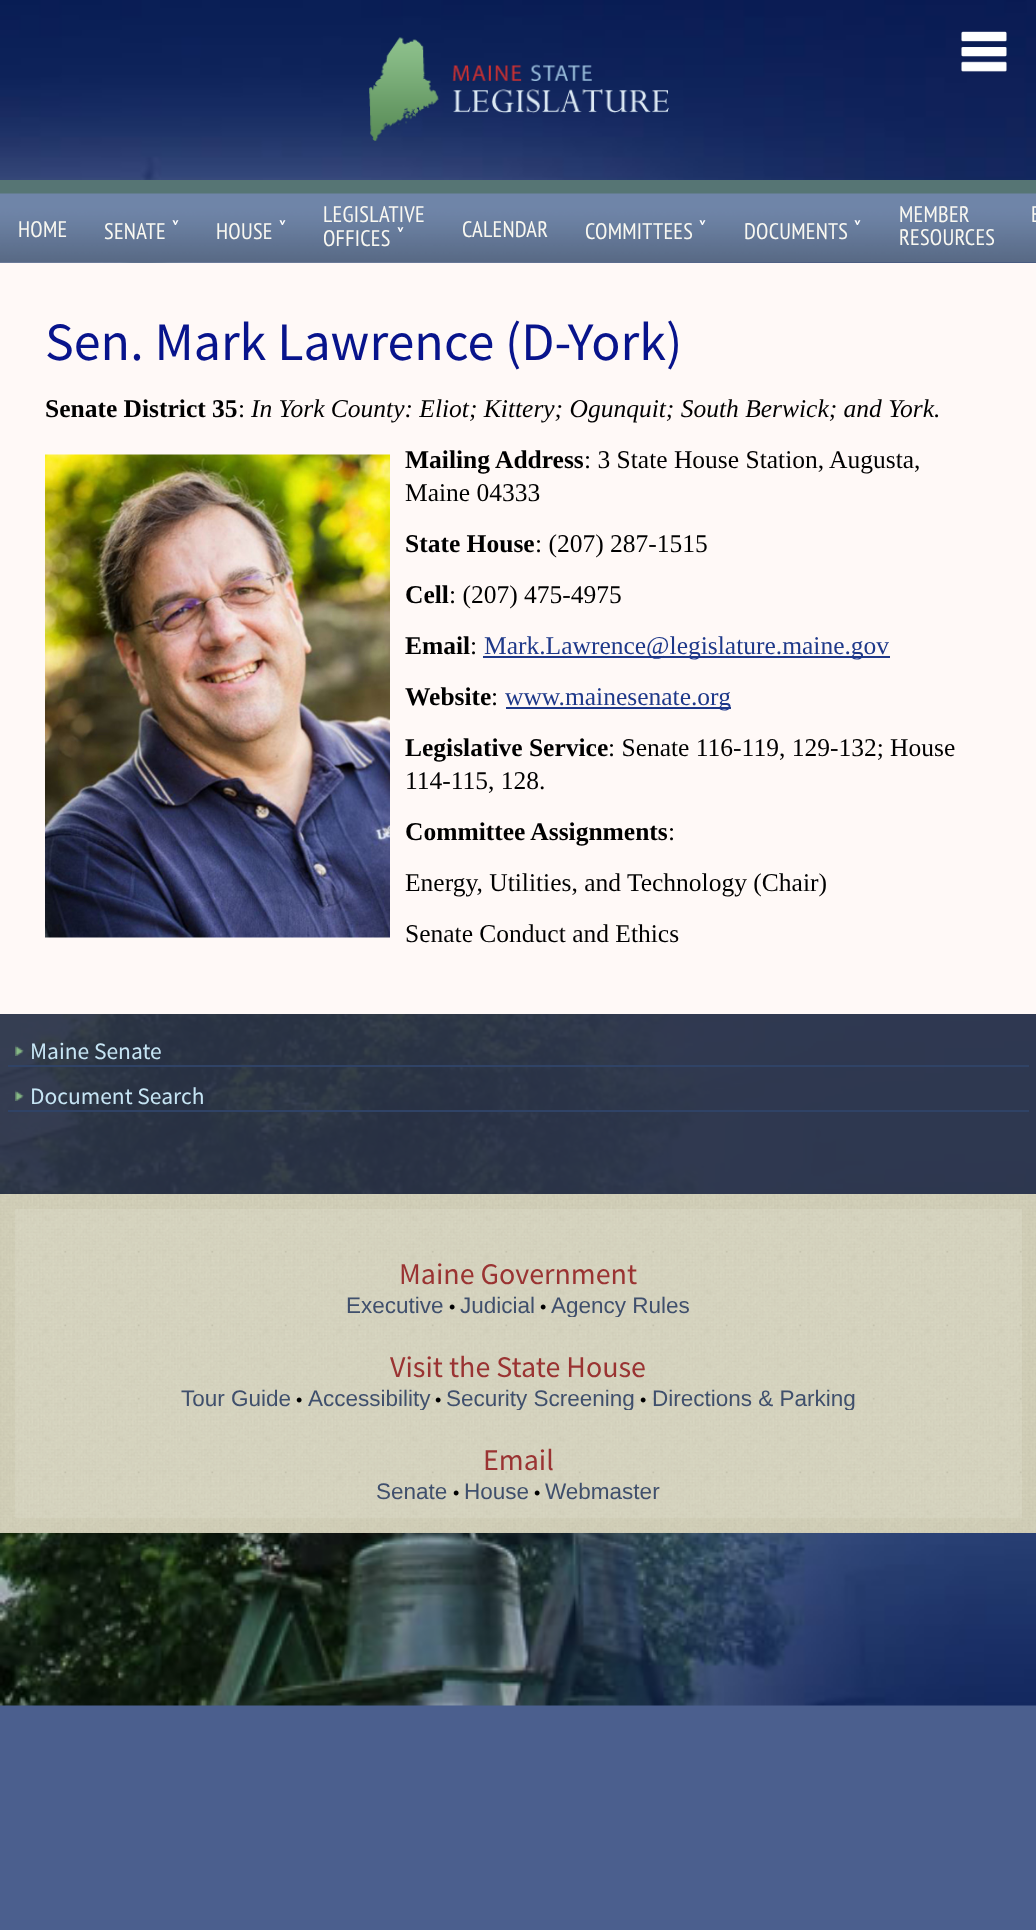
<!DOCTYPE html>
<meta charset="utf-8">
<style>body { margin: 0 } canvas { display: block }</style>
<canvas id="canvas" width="1036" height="1930"></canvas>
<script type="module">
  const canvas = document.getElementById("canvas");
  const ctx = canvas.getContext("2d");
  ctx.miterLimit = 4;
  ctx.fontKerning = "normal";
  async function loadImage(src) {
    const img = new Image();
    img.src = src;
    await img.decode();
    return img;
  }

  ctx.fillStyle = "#4b5f8e";
  ctx.fillRect(0, 0, 1036, 1930);
  ctx.drawImage(await loadImage("img1.png"), 0, 0, 1036, 1706);
  ctx.drawImage(await loadImage("img2.png"), 369, 37, 300, 104);
  ctx.drawImage(await loadImage("img3.png"), 961, 31, 46, 41);
  ctx.fillStyle = "rgba(248, 248, 241, 0.14)";
  ctx.fillRect(0, 262, 1036, 932);
  ctx.drawImage(await loadImage("img4.png"), 0, 180, 1036, 83);
  ctx.letterSpacing = "0.25px";
  ctx.font = "22.5px PT Sans Narrow";
  ctx.fillStyle = "#f9f8f1";
  ctx.fillText("LEGISLATIVE", 323, 222);
  ctx.font = "25.5px PT Sans Narrow";
  ctx.fillStyle = "#ffffff";
  ctx.fillText("ˇ", 396, 246);
  ctx.font = "22.5px PT Sans Narrow";
  ctx.fillStyle = "#f9f8f1";
  ctx.fillText("OFFICES", 323, 246);
  ctx.fillText("MEMBER", 899, 222);
  ctx.fillText("RESOURCES", 899, 245);
  ctx.fillText("E", 1031, 222);
  ctx.fillText("HOME", 18, 237);
  ctx.font = "25.5px PT Sans Narrow";
  ctx.fillStyle = "#ffffff";
  ctx.fillText("ˇ", 171, 239);
  ctx.font = "22.5px PT Sans Narrow";
  ctx.fillStyle = "#f9f8f1";
  ctx.fillText("SENATE", 104, 239);
  ctx.font = "25.5px PT Sans Narrow";
  ctx.fillStyle = "#ffffff";
  ctx.fillText("ˇ", 278, 239);
  ctx.font = "22.5px PT Sans Narrow";
  ctx.fillStyle = "#f9f8f1";
  ctx.fillText("HOUSE", 216, 239);
  ctx.fillText("CALENDAR", 462, 237);
  ctx.font = "25.5px PT Sans Narrow";
  ctx.fillStyle = "#ffffff";
  ctx.fillText("ˇ", 698, 239);
  ctx.font = "22.5px PT Sans Narrow";
  ctx.fillStyle = "#f9f8f1";
  ctx.fillText("COMMITTEES", 585, 239);
  ctx.font = "25.5px PT Sans Narrow";
  ctx.fillStyle = "#ffffff";
  ctx.fillText("ˇ", 853, 239);
  ctx.font = "22.5px PT Sans Narrow";
  ctx.fillStyle = "#f9f8f1";
  ctx.fillText("DOCUMENTS", 744, 239);
  ctx.fillStyle = "#fff9f7";
  ctx.fillRect(0, 263, 1036, 751);
  ctx.letterSpacing = "0px";
  ctx.font = "54px Source Sans Pro";
  ctx.fillStyle = "#08148c";
  ctx.fillText("Sen. Mark Lawrence (D-York)", 45, 360);
  ctx.font = "bold 25.5px Liberation Serif";
  ctx.fillStyle = "#000000";
  ctx.fillText("Senate District 35", 45, 417);
  ctx.font = "25.5px Liberation Serif";
  ctx.fillText(":", 238, 417);
  ctx.font = "italic 25.5px Liberation Serif";
  ctx.fillText("In York County: Eliot; Kittery; Ogunquit; South Berwick; and York.", 251, 417);
  ctx.drawImage(await loadImage("img5.png"), 45, 454, 345, 484);
  ctx.font = "bold 25.5px Liberation Serif";
  ctx.fillText("Mailing Address", 405, 468);
  ctx.font = "25.5px Liberation Serif";
  ctx.fillText(": 3 State House Station, Augusta,", 584, 468);
  ctx.fillText("Maine 04333", 405, 501);
  ctx.font = "bold 25.5px Liberation Serif";
  ctx.fillText("State House", 405, 552);
  ctx.font = "25.5px Liberation Serif";
  ctx.fillText(": (207) 287-1515", 535, 552);
  ctx.font = "bold 25.5px Liberation Serif";
  ctx.fillText("Cell", 405, 603);
  ctx.font = "25.5px Liberation Serif";
  ctx.fillText(": (207) 475-4975", 449, 603);
  ctx.font = "bold 25.5px Liberation Serif";
  ctx.fillText("Email", 405, 654);
  ctx.font = "25.5px Liberation Serif";
  ctx.fillText(":", 470, 654);
  ctx.fillStyle = "#1e3889";
  ctx.fillRect(483, 656, 407, 2);
  ctx.fillText("Mark.Lawrence@legislature.maine.gov", 484, 654);
  ctx.font = "bold 25.5px Liberation Serif";
  ctx.fillStyle = "#000000";
  ctx.fillText("Website", 405, 705);
  ctx.font = "25.5px Liberation Serif";
  ctx.fillText(":", 491, 705);
  ctx.fillStyle = "#1e3889";
  ctx.fillRect(506, 707, 225, 2);
  ctx.fillText("www.mainesenate.org", 505, 705);
  ctx.font = "bold 25.5px Liberation Serif";
  ctx.fillStyle = "#000000";
  ctx.fillText("Legislative Service", 405, 756);
  ctx.font = "25.5px Liberation Serif";
  ctx.fillText(": Senate 116-119, 129-132; House", 608, 756);
  ctx.fillText("114-115, 128.", 405, 789);
  ctx.font = "bold 25.5px Liberation Serif";
  ctx.fillText("Committee Assignments", 405, 840);
  ctx.font = "25.5px Liberation Serif";
  ctx.fillText(":", 668, 840);
  ctx.fillText("Energy, Utilities, and Technology (Chair)", 405, 891);
  ctx.fillText("Senate Conduct and Ethics", 405, 942);
  ctx.fillStyle = "rgba(39, 47, 69, 0.9)";
  ctx.fillRect(0, 1014, 1036, 180);
  ctx.fillStyle = "#304366";
  ctx.fillRect(8, 1065, 1021, 2);
  ctx.drawImage(await loadImage("img6.png"), 15, 1045, 9, 11);
  ctx.font = "23.5px Source Sans Pro";
  ctx.fillStyle = "#c6e5f4";
  ctx.fillText("Maine Senate", 30, 1059);
  ctx.fillStyle = "#304366";
  ctx.fillRect(8, 1110, 1021, 2);
  ctx.drawImage(await loadImage("img7.png"), 15, 1090, 9, 11);
  ctx.fillStyle = "#c6e5f4";
  ctx.fillText("Document Search", 30, 1104);
  ctx.drawImage(await loadImage("img8.png"), 0, 1194, 1036, 339);
  ctx.fillStyle = "rgba(248, 248, 241, 0.14)";
  ctx.fillRect(15, 1209, 1007, 309);
  ctx.font = "30px Source Sans Pro";
  ctx.fillStyle = "#9a3332";
  ctx.fillText("Maine Government", 399, 1284);
  ctx.font = "22.5px Liberation Sans";
  ctx.fillStyle = "#3f4f6c";
  ctx.fillText("Executive", 346, 1313);
  ctx.font = "18px Liberation Sans";
  ctx.fillStyle = "#000000";
  ctx.fillText("•", 449, 1313);
  ctx.font = "22.5px Liberation Sans";
  ctx.fillStyle = "#3f4f6c";
  ctx.fillText("Judicial", 460, 1313);
  ctx.font = "18px Liberation Sans";
  ctx.fillStyle = "#000000";
  ctx.fillText("•", 540, 1313);
  ctx.save();
  ctx.beginPath();
  ctx.rect(30, 1224, 977, 93);
  ctx.clip();
  ctx.font = "22.5px Liberation Sans";
  ctx.fillStyle = "#3f4f6c";
  ctx.fillText("Agency Rules", 551, 1313);
  ctx.restore();
  ctx.font = "30px Source Sans Pro";
  ctx.fillStyle = "#9a3332";
  ctx.fillText("Visit the State House", 390, 1377);
  ctx.font = "22.5px Liberation Sans";
  ctx.fillStyle = "#3f4f6c";
  ctx.fillText("Tour Guide", 181, 1406);
  ctx.font = "18px Liberation Sans";
  ctx.fillStyle = "#000000";
  ctx.fillText("•", 296, 1406);
  ctx.save();
  ctx.beginPath();
  ctx.rect(30, 1317, 977, 93);
  ctx.clip();
  ctx.font = "22.5px Liberation Sans";
  ctx.fillStyle = "#3f4f6c";
  ctx.fillText("Accessibility", 308, 1406);
  ctx.restore();
  ctx.fillText("•", 435, 1406);
  ctx.save();
  ctx.beginPath();
  ctx.rect(30, 1317, 977, 93);
  ctx.clip();
  ctx.font = "22.5px Liberation Sans";
  ctx.fillStyle = "#3f4f6c";
  ctx.fillText("Security Screening", 446, 1406);
  ctx.restore();
  ctx.fillText("•", 640, 1406);
  ctx.save();
  ctx.beginPath();
  ctx.rect(30, 1317, 977, 93);
  ctx.clip();
  ctx.font = "22.5px Liberation Sans";
  ctx.fillStyle = "#3f4f6c";
  ctx.fillText("Directions & Parking", 652, 1406);
  ctx.restore();
  ctx.font = "30px Source Sans Pro";
  ctx.fillStyle = "#9a3332";
  ctx.fillText("Email", 483, 1470);
  ctx.font = "22.5px Liberation Sans";
  ctx.fillStyle = "#3f4f6c";
  ctx.fillText("Senate", 376, 1499);
  ctx.font = "18px Liberation Sans";
  ctx.fillStyle = "#000000";
  ctx.fillText("•", 453, 1499);
  ctx.font = "22.5px Liberation Sans";
  ctx.fillStyle = "#3f4f6c";
  ctx.fillText("House", 464, 1499);
  ctx.font = "18px Liberation Sans";
  ctx.fillStyle = "#000000";
  ctx.fillText("•", 534, 1499);
  ctx.font = "22.5px Liberation Sans";
  ctx.fillStyle = "#3f4f6c";
  ctx.fillText("Webmaster", 545, 1499);
</script>
